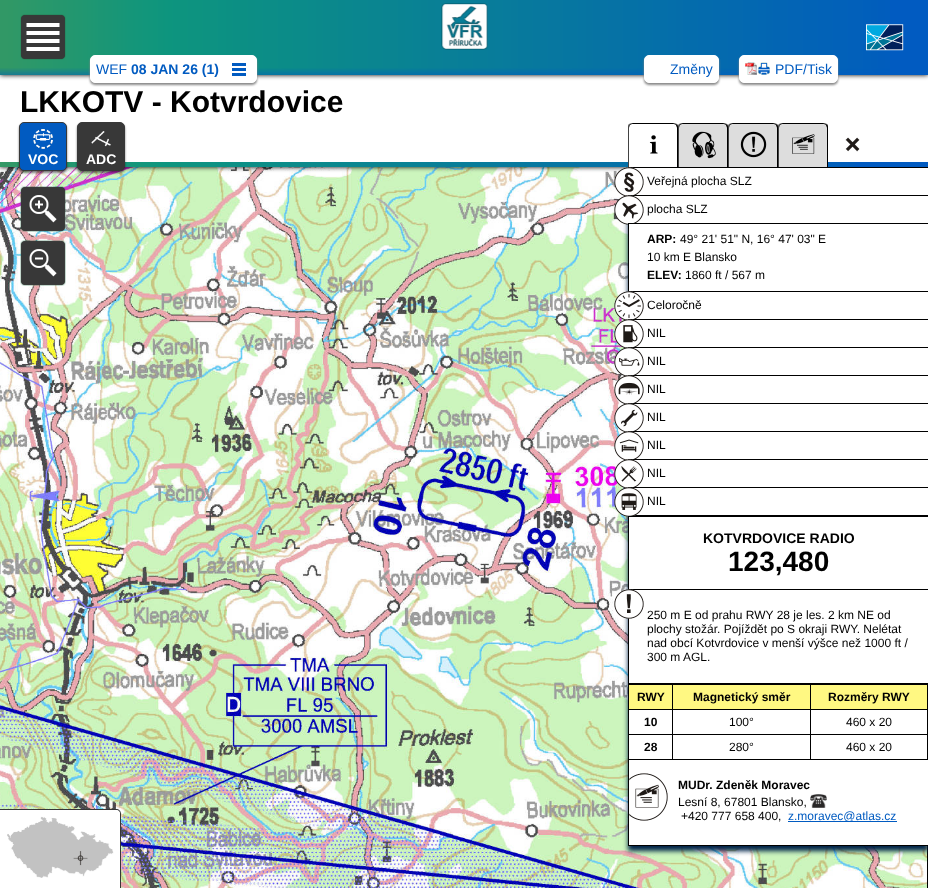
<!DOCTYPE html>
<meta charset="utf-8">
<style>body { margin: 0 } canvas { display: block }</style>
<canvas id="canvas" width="928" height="888"></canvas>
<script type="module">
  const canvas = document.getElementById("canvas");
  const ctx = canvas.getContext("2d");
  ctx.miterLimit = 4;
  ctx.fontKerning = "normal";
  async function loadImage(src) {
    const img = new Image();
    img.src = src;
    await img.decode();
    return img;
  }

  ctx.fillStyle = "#000000";
  ctx.fillRect(0, 0, 928, 888);
  ctx.drawImage(await loadImage("img15.png"), 0, 167, 927, 721);
  ctx.filter = "blur(2.5px)";
  ctx.beginPath();
  ctx.rect(0, 75, 928, 92);
  ctx.fill();
  ctx.filter = "none";
  ctx.fillStyle = "#ffffff";
  ctx.fillRect(0, 75, 928, 87);
  ctx.fillStyle = "#000000";
  ctx.filter = "blur(2.5px)";
  ctx.beginPath();
  ctx.rect(0, 0, 928, 75);
  ctx.fill();
  ctx.filter = "none";
  ctx.fillStyle = "#015bc1";
  ctx.fillRect(0, 0, 928, 75);
  ctx.drawImage(await loadImage("img1.png"), 0, 0, 890, 75);
  ctx.drawImage(await loadImage("img2.png"), 20, 14, 46, 46);
  ctx.drawImage(await loadImage("img3.png"), 441, 3, 47, 47);
  ctx.drawImage(await loadImage("img4.png"), 866, 24, 38, 27);
  ctx.fillStyle = "#888888";
  ctx.filter = "blur(1px)";
  ctx.beginPath();
  ctx.roundRect(90, 57, 167, 28, 5);
  ctx.fill();
  ctx.filter = "none";
  ctx.fillStyle = "#ffffff";
  ctx.beginPath();
  ctx.roundRect(90.5, 55.5, 166, 27, 4.5);
  ctx.fill();
  ctx.strokeStyle = "#ffffff";
  ctx.stroke();
  ctx.font = "14px Liberation Sans";
  ctx.fillStyle = "#015bc1";
  ctx.fillText("WEF", 96, 74);
  ctx.font = "bold 14px Liberation Sans";
  ctx.fillText("08 JAN 26 (1)", 131, 74);
  ctx.drawImage(await loadImage("img5.png"), 232, 63, 14, 13);
  ctx.fillStyle = "#888888";
  ctx.filter = "blur(1px)";
  ctx.beginPath();
  ctx.roundRect(644, 57, 75, 28, 5);
  ctx.fill();
  ctx.filter = "none";
  ctx.fillStyle = "#ffffff";
  ctx.beginPath();
  ctx.roundRect(644.5, 55.5, 74, 27, 4.5);
  ctx.fill();
  ctx.stroke();
  ctx.font = "14px Liberation Sans";
  ctx.fillStyle = "#015bc1";
  ctx.fillText("Změny", 670, 74);
  ctx.fillStyle = "#888888";
  ctx.filter = "blur(1px)";
  ctx.beginPath();
  ctx.roundRect(739, 57, 99, 28, 5);
  ctx.fill();
  ctx.filter = "none";
  ctx.fillStyle = "#ffffff";
  ctx.beginPath();
  ctx.roundRect(739.5, 55.5, 98, 27, 4.5);
  ctx.fill();
  ctx.stroke();
  ctx.drawImage(await loadImage("img6.png"), 745, 62, 25, 13);
  ctx.fillStyle = "#015bc1";
  ctx.fillText("PDF/Tisk", 775, 74);
  ctx.fillRect(855, 162, 73, 5);
  ctx.drawImage(await loadImage("img7.png"), 0, 162, 855, 5);
  ctx.font = "bold 30px Liberation Sans";
  ctx.fillStyle = "#000000";
  ctx.fillText("LKKOTV - Kotvrdovice", 20, 112);
  ctx.fillStyle = "rgba(0, 0, 0, 0.5)";
  ctx.filter = "blur(1px)";
  ctx.beginPath();
  ctx.roundRect(19, 124, 48, 49, 5);
  ctx.fill();
  ctx.filter = "none";
  ctx.fillStyle = "#015bc1";
  ctx.beginPath();
  ctx.roundRect(19.5, 122.5, 47, 48, 4.5);
  ctx.fill();
  ctx.strokeStyle = "#383838";
  ctx.stroke();
  ctx.drawImage(await loadImage("img8.png"), 33, 129, 20, 20);
  ctx.font = "bold 14px Liberation Sans";
  ctx.fillStyle = "#ffffff";
  ctx.fillText("VOC", 28, 164);
  ctx.fillStyle = "rgba(0, 0, 0, 0.5)";
  ctx.filter = "blur(1px)";
  ctx.beginPath();
  ctx.roundRect(77, 124, 48, 49, 5);
  ctx.fill();
  ctx.filter = "none";
  ctx.fillStyle = "#383838";
  ctx.beginPath();
  ctx.roundRect(77.5, 122.5, 47, 48, 4.5);
  ctx.fill();
  ctx.stroke();
  ctx.drawImage(await loadImage("img9.png"), 91, 131, 20, 16);
  ctx.fillStyle = "#ffffff";
  ctx.fillText("ADC", 86, 164);
  ctx.beginPath();
  ctx.roundRect(628, 123, 50, 44, [5, 5, 0, 0]);
  ctx.fill();
  ctx.fillStyle = "#000000";
  ctx.beginPath();
  ctx.moveTo(633, 123);
  ctx.bezierCurveTo(632, 123, 630, 124, 629, 124);
  ctx.lineTo(630, 125);
  ctx.bezierCurveTo(631, 124, 632, 124, 633, 124);
  ctx.lineTo(673, 124);
  ctx.bezierCurveTo(674, 124, 675, 124, 676, 125);
  ctx.lineTo(677, 124);
  ctx.bezierCurveTo(676, 124, 674, 123, 673, 123);
  ctx.closePath();
  ctx.fill();
  ctx.beginPath();
  ctx.moveTo(677, 167);
  ctx.lineTo(678, 167);
  ctx.lineTo(678, 128);
  ctx.bezierCurveTo(678, 126, 678, 125, 677, 124);
  ctx.lineTo(676, 125);
  ctx.bezierCurveTo(676, 126, 677, 127, 677, 128);
  ctx.closePath();
  ctx.fill();
  ctx.fillStyle = "#424242";
  ctx.beginPath();
  ctx.moveTo(628, 167);
  ctx.lineTo(629, 167);
  ctx.lineTo(629, 128);
  ctx.bezierCurveTo(629, 127, 630, 126, 630, 125);
  ctx.lineTo(629, 124);
  ctx.bezierCurveTo(628, 125, 628, 126, 628, 128);
  ctx.closePath();
  ctx.fill();
  ctx.drawImage(await loadImage("img10.png"), 649, 135, 9, 19);
  ctx.fillStyle = "#dddddd";
  ctx.beginPath();
  ctx.roundRect(678, 123, 50, 44, [5, 5, 0, 0]);
  ctx.fill();
  ctx.fillStyle = "#000000";
  ctx.beginPath();
  ctx.moveTo(683, 123);
  ctx.bezierCurveTo(682, 123, 680, 124, 679, 124);
  ctx.lineTo(680, 125);
  ctx.bezierCurveTo(681, 124, 682, 124, 683, 124);
  ctx.lineTo(723, 124);
  ctx.bezierCurveTo(724, 124, 725, 124, 726, 125);
  ctx.lineTo(727, 124);
  ctx.bezierCurveTo(726, 124, 724, 123, 723, 123);
  ctx.closePath();
  ctx.fill();
  ctx.beginPath();
  ctx.moveTo(727, 167);
  ctx.lineTo(728, 167);
  ctx.lineTo(728, 128);
  ctx.bezierCurveTo(728, 126, 728, 125, 727, 124);
  ctx.lineTo(726, 125);
  ctx.bezierCurveTo(726, 126, 727, 127, 727, 128);
  ctx.closePath();
  ctx.fill();
  ctx.fillStyle = "#424242";
  ctx.beginPath();
  ctx.moveTo(678, 167);
  ctx.lineTo(679, 167);
  ctx.lineTo(679, 128);
  ctx.bezierCurveTo(679, 127, 680, 126, 680, 125);
  ctx.lineTo(679, 124);
  ctx.bezierCurveTo(678, 125, 678, 126, 678, 128);
  ctx.closePath();
  ctx.fill();
  ctx.drawImage(await loadImage("img11.png"), 692, 131, 24, 28);
  ctx.fillStyle = "#dddddd";
  ctx.beginPath();
  ctx.roundRect(728, 123, 50, 44, [5, 5, 0, 0]);
  ctx.fill();
  ctx.fillStyle = "#000000";
  ctx.beginPath();
  ctx.moveTo(733, 123);
  ctx.bezierCurveTo(732, 123, 730, 124, 729, 124);
  ctx.lineTo(730, 125);
  ctx.bezierCurveTo(731, 124, 732, 124, 733, 124);
  ctx.lineTo(773, 124);
  ctx.bezierCurveTo(774, 124, 775, 124, 776, 125);
  ctx.lineTo(777, 124);
  ctx.bezierCurveTo(776, 124, 774, 123, 773, 123);
  ctx.closePath();
  ctx.fill();
  ctx.beginPath();
  ctx.moveTo(777, 167);
  ctx.lineTo(778, 167);
  ctx.lineTo(778, 128);
  ctx.bezierCurveTo(778, 126, 778, 125, 777, 124);
  ctx.lineTo(776, 125);
  ctx.bezierCurveTo(776, 126, 777, 127, 777, 128);
  ctx.closePath();
  ctx.fill();
  ctx.fillStyle = "#424242";
  ctx.beginPath();
  ctx.moveTo(728, 167);
  ctx.lineTo(729, 167);
  ctx.lineTo(729, 128);
  ctx.bezierCurveTo(729, 127, 730, 126, 730, 125);
  ctx.lineTo(729, 124);
  ctx.bezierCurveTo(728, 125, 728, 126, 728, 128);
  ctx.closePath();
  ctx.fill();
  ctx.drawImage(await loadImage("img12.png"), 740, 131, 27, 27);
  ctx.fillStyle = "#dddddd";
  ctx.beginPath();
  ctx.roundRect(778, 123, 50, 44, [5, 5, 0, 0]);
  ctx.fill();
  ctx.fillStyle = "#000000";
  ctx.beginPath();
  ctx.moveTo(783, 123);
  ctx.bezierCurveTo(782, 123, 780, 124, 779, 124);
  ctx.lineTo(780, 125);
  ctx.bezierCurveTo(781, 124, 782, 124, 783, 124);
  ctx.lineTo(823, 124);
  ctx.bezierCurveTo(824, 124, 825, 124, 826, 125);
  ctx.lineTo(827, 124);
  ctx.bezierCurveTo(826, 124, 824, 123, 823, 123);
  ctx.closePath();
  ctx.fill();
  ctx.beginPath();
  ctx.moveTo(827, 167);
  ctx.lineTo(828, 167);
  ctx.lineTo(828, 128);
  ctx.bezierCurveTo(828, 126, 828, 125, 827, 124);
  ctx.lineTo(826, 125);
  ctx.bezierCurveTo(826, 126, 827, 127, 827, 128);
  ctx.closePath();
  ctx.fill();
  ctx.fillStyle = "#424242";
  ctx.beginPath();
  ctx.moveTo(778, 167);
  ctx.lineTo(779, 167);
  ctx.lineTo(779, 128);
  ctx.bezierCurveTo(779, 127, 780, 126, 780, 125);
  ctx.lineTo(779, 124);
  ctx.bezierCurveTo(778, 125, 778, 126, 778, 128);
  ctx.closePath();
  ctx.fill();
  ctx.drawImage(await loadImage("img13.png"), 792, 134, 23, 20);
  ctx.drawImage(await loadImage("img14.png"), 845, 137, 15, 15);
  ctx.drawImage(await loadImage("img16.png"), 20, 186, 46, 46);
  ctx.drawImage(await loadImage("img17.png"), 20, 240, 46, 46);
  ctx.fillStyle = "#ffffff";
  ctx.beginPath();
  ctx.roundRect(0, 809, 121, 79, [0, 5, 0, 0]);
  ctx.fill();
  ctx.fillStyle = "#383838";
  ctx.beginPath();
  ctx.moveTo(0, 809);
  ctx.lineTo(116, 809);
  ctx.bezierCurveTo(119, 809, 121, 811, 121, 814);
  ctx.lineTo(121, 888);
  ctx.lineTo(0, 888);
  ctx.closePath();
  ctx.moveTo(0, 810);
  ctx.lineTo(116, 810);
  ctx.bezierCurveTo(118, 810, 120, 812, 120, 814);
  ctx.lineTo(120, 888);
  ctx.lineTo(0, 888);
  ctx.closePath();
  ctx.fill("evenodd");
  ctx.drawImage(await loadImage("img18.png"), 7, 810, 113, 68);
  ctx.fillStyle = "#002349";
  ctx.filter = "blur(2.5px)";
  ctx.beginPath();
  ctx.rect(628, 172, 300, 679);
  ctx.fill();
  ctx.filter = "none";
  ctx.fillStyle = "#ffffff";
  ctx.fillRect(633, 168, 295, 27);
  ctx.fillStyle = "#000000";
  ctx.fillRect(628, 167, 300, 1);
  ctx.drawImage(await loadImage("img19.png"), 614, 167, 30, 30);
  ctx.font = "12px Liberation Sans";
  ctx.fillText("Veřejná plocha SLZ", 647, 185);
  ctx.fillStyle = "#ffffff";
  ctx.fillRect(633, 196, 295, 27);
  ctx.fillStyle = "#000000";
  ctx.fillRect(628, 195, 300, 1);
  ctx.drawImage(await loadImage("img20.png"), 614, 195, 30, 30);
  ctx.fillText("plocha SLZ", 647, 213);
  ctx.fillStyle = "#ffffff";
  ctx.fillRect(629, 224, 299, 67);
  ctx.fillStyle = "#000000";
  ctx.fillRect(628, 223, 300, 1);
  ctx.fillRect(628, 223, 1, 69);
  ctx.font = "bold 12px Liberation Sans";
  ctx.fillText("ARP:", 647, 243);
  ctx.font = "12px Liberation Sans";
  ctx.fillText("49° 21' 51\" N, 16° 47' 03\" E", 680, 243);
  ctx.fillText("10 km E Blansko", 647, 261);
  ctx.font = "bold 12px Liberation Sans";
  ctx.fillText("ELEV:", 647, 279);
  ctx.font = "12px Liberation Sans";
  ctx.fillText("1860 ft / 567 m", 685, 279);
  ctx.fillStyle = "#ffffff";
  ctx.fillRect(633, 292, 295, 223);
  ctx.fillStyle = "#000000";
  ctx.fillRect(628, 291, 300, 1);
  ctx.drawImage(await loadImage("img21.png"), 614, 291, 30, 30);
  ctx.fillText("Celoročně", 647, 309);
  ctx.fillRect(628, 319, 300, 1);
  ctx.drawImage(await loadImage("img22.png"), 614, 319, 30, 30);
  ctx.fillText("NIL", 647, 337);
  ctx.fillRect(628, 347, 300, 1);
  ctx.drawImage(await loadImage("img23.png"), 614, 347, 30, 30);
  ctx.fillText("NIL", 647, 365);
  ctx.fillRect(628, 375, 300, 1);
  ctx.drawImage(await loadImage("img24.png"), 614, 375, 30, 30);
  ctx.fillText("NIL", 647, 393);
  ctx.fillRect(628, 403, 300, 1);
  ctx.drawImage(await loadImage("img25.png"), 614, 403, 30, 30);
  ctx.fillText("NIL", 647, 421);
  ctx.fillRect(628, 431, 300, 1);
  ctx.drawImage(await loadImage("img26.png"), 614, 431, 30, 30);
  ctx.fillText("NIL", 647, 449);
  ctx.fillRect(628, 459, 300, 1);
  ctx.drawImage(await loadImage("img27.png"), 614, 459, 30, 30);
  ctx.fillText("NIL", 647, 477);
  ctx.fillRect(628, 487, 300, 1);
  ctx.fillRect(628, 515, 300, 1);
  ctx.drawImage(await loadImage("img28.png"), 614, 487, 30, 30);
  ctx.fillText("NIL", 647, 505);
  ctx.fillStyle = "#ffffff";
  ctx.fillRect(629, 517, 299, 72);
  ctx.fillStyle = "#000000";
  ctx.fillRect(628, 516, 300, 1);
  ctx.fillRect(628, 516, 1, 74);
  ctx.font = "bold 14px Liberation Sans";
  ctx.fillText("KOTVRDOVICE RADIO", 703, 543);
  ctx.font = "bold 28px Liberation Sans";
  ctx.fillText("123,480", 728, 571);
  ctx.fillStyle = "#ffffff";
  ctx.fillRect(629, 590, 299, 93);
  ctx.fillStyle = "#000000";
  ctx.fillRect(628, 589, 300, 1);
  ctx.fillRect(628, 683, 300, 1);
  ctx.fillRect(628, 589, 1, 95);
  ctx.drawImage(await loadImage("img29.png"), 614, 589, 30, 30);
  ctx.font = "12px Liberation Sans";
  ctx.fillText("250 m E od prahu RWY 28 je les. 2 km NE od", 647, 619);
  ctx.fillText("plochy stožár. Pojíždět po S okraji RWY. Nelétat", 647, 633);
  ctx.fillText("nad obcí Kotvrdovice v menší výšce než 1000 ft /", 647, 647);
  ctx.fillText("300 m AGL.", 647, 661);
  ctx.fillStyle = "#ffffff";
  ctx.fillRect(629, 710, 298, 49);
  ctx.fillStyle = "#fff882";
  ctx.fillRect(629, 685, 43, 24);
  ctx.fillStyle = "#000000";
  ctx.fillRect(810, 684, 118, 1);
  ctx.fillRect(810, 709, 118, 1);
  ctx.fillRect(810, 734, 118, 1);
  ctx.fillRect(810, 734, 1, 26);
  ctx.fillRect(672, 734, 139, 1);
  ctx.fillRect(810, 709, 1, 26);
  ctx.fillRect(672, 709, 139, 1);
  ctx.fillRect(810, 684, 1, 26);
  ctx.fillRect(672, 684, 139, 1);
  ctx.fillRect(672, 734, 1, 26);
  ctx.fillRect(628, 734, 45, 1);
  ctx.fillRect(672, 709, 1, 26);
  ctx.fillRect(628, 709, 45, 1);
  ctx.fillRect(672, 684, 1, 26);
  ctx.fillRect(628, 684, 45, 1);
  ctx.fillRect(628, 734, 1, 26);
  ctx.fillRect(628, 709, 1, 26);
  ctx.fillRect(628, 684, 1, 26);
  ctx.font = "bold 12px Liberation Sans";
  ctx.fillText("RWY", 637, 701);
  ctx.fillStyle = "#fff882";
  ctx.fillRect(673, 685, 137, 24);
  ctx.fillStyle = "#000000";
  ctx.fillText("Magnetický směr", 693, 701);
  ctx.fillStyle = "#fff882";
  ctx.fillRect(811, 685, 116, 24);
  ctx.fillStyle = "#000000";
  ctx.fillRect(927, 734, 1, 26);
  ctx.fillRect(927, 709, 1, 26);
  ctx.fillRect(927, 684, 1, 26);
  ctx.fillText("Rozměry RWY", 828, 701);
  ctx.fillText("10", 644, 726);
  ctx.font = "12px Liberation Sans";
  ctx.fillText("100°", 729, 726);
  ctx.fillText("460 x 20", 846, 726);
  ctx.font = "bold 12px Liberation Sans";
  ctx.fillText("28", 644, 751);
  ctx.font = "12px Liberation Sans";
  ctx.fillText("280°", 729, 751);
  ctx.fillText("460 x 20", 846, 751);
  ctx.fillStyle = "#ffffff";
  ctx.fillRect(629, 760, 299, 85);
  ctx.fillStyle = "#000000";
  ctx.fillRect(628, 759, 300, 1);
  ctx.fillRect(628, 845, 300, 1);
  ctx.fillRect(628, 759, 1, 87);
  ctx.drawImage(await loadImage("img30.png"), 629, 773, 39, 48);
  ctx.font = "bold 12px Liberation Sans";
  ctx.fillText("MUDr. Zdeněk Moravec", 678, 789);
  ctx.font = "12px Liberation Sans";
  ctx.fillText("Lesní 8, 67801 Blansko,", 678, 806);
  ctx.drawImage(await loadImage("img31.png"), 810, 794, 17, 14);
  ctx.fillText("+420 777 658 400,", 681, 820);
  ctx.fillStyle = "#015bc1";
  ctx.fillRect(788, 821, 109, 1);
  ctx.fillText("z.moravec@atlas.cz", 788, 820);
</script>
